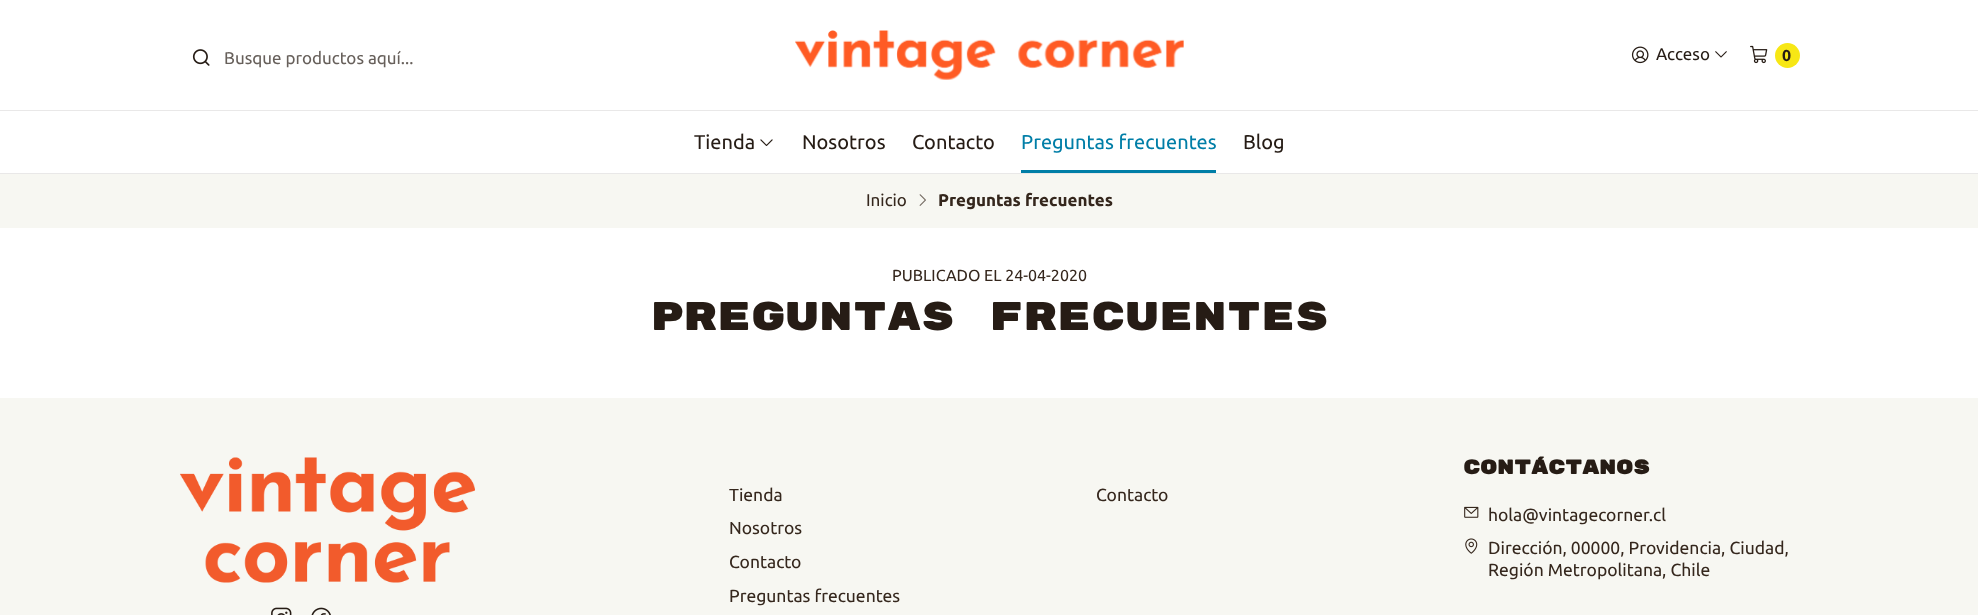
<!DOCTYPE html>
<meta charset="utf-8">
<style>body { margin: 0 } canvas { display: block }</style>
<canvas id="canvas" width="1978" height="615"></canvas>
<script type="module">
  const canvas = document.getElementById("canvas");
  const ctx = canvas.getContext("2d");
  ctx.miterLimit = 4;
  ctx.fontKerning = "normal";
  async function loadImage(src) {
    const img = new Image();
    img.src = src;
    await img.decode();
    return img;
  }

  ctx.fillStyle = "#ffffff";
  ctx.fillRect(0, 0, 1978, 615);
  ctx.fillStyle = "#e9e8e8";
  ctx.fillRect(0, 173, 1978, 1);
  ctx.drawImage(await loadImage("img1.png"), 192, 49, 18, 17);
  ctx.font = "17px Ubuntu";
  ctx.fillStyle = "#67605b";
  ctx.fillText("Busque productos aquí...", 224, 64);
  ctx.drawImage(await loadImage("img2.png"), 795, 30, 389, 50);
  ctx.drawImage(await loadImage("img3.png"), 1631, 46, 18, 18);
  ctx.fillStyle = "#261c15";
  ctx.fillText("Acceso", 1656, 60);
  ctx.drawImage(await loadImage("img4.png"), 1715, 51, 12, 7);
  ctx.drawImage(await loadImage("img5.png"), 1750, 45, 18, 19);
  ctx.fillStyle = "#f7e715";
  ctx.beginPath();
  ctx.arc(1787.5, 55.5, 12.5, 0, Math.PI * 2);
  ctx.fill();
  ctx.font = "bold 16px Ubuntu";
  ctx.fillStyle = "#261c15";
  ctx.fillText("0", 1782, 61);
  ctx.fillStyle = "#e9e8e8";
  ctx.fillRect(0, 110, 1978, 1);
  ctx.font = "20px Ubuntu";
  ctx.fillStyle = "#261c15";
  ctx.fillText("Tienda", 694, 149);
  ctx.drawImage(await loadImage("img6.png"), 760, 139, 13, 7);
  ctx.fillText("Nosotros", 802, 149);
  ctx.fillText("Contacto", 912, 149);
  ctx.fillStyle = "#007ea7";
  ctx.fillText("Preguntas frecuentes", 1021, 149);
  ctx.fillRect(1021, 170, 195, 3);
  ctx.fillStyle = "#261c15";
  ctx.fillText("Blog", 1243, 149);
  ctx.fillStyle = "#f7f7f2";
  ctx.fillRect(0, 174, 1978, 54);
  ctx.font = "17px Ubuntu";
  ctx.fillStyle = "#35271d";
  ctx.fillText("Inicio", 866, 206);
  ctx.drawImage(await loadImage("img7.png"), 919, 194, 7, 12);
  ctx.font = "bold 17px Ubuntu";
  ctx.fillText("Preguntas frecuentes", 938, 206);
  ctx.font = "16px Ubuntu";
  ctx.fillText("PUBLICADO EL 24-04-2020", 892, 281);
  ctx.font = "40px Rubik Mono One";
  ctx.fillStyle = "#261c15";
  ctx.fillText("Preguntas frecuentes", 649, 330);
  ctx.fillStyle = "#f7f7f2";
  ctx.fillRect(0, 398, 1978, 217);
  ctx.drawImage(await loadImage("img8.png"), 180, 457, 295, 126);
  ctx.drawImage(await loadImage("img9.png"), 271, 607, 21, 8);
  ctx.drawImage(await loadImage("img10.png"), 311, 607, 20, 8);
  ctx.font = "17.5px Ubuntu";
  ctx.fillStyle = "#35271d";
  ctx.fillText("Tienda", 729, 501);
  ctx.fillText("Nosotros", 729, 534);
  ctx.fillText("Contacto", 729, 568);
  ctx.fillText("Preguntas frecuentes", 729, 602);
  ctx.fillText("Contacto", 1096, 501);
  ctx.font = "bold 20px Rubik Mono One";
  ctx.fillStyle = "#261c15";
  ctx.fillText("Contáctanos", 1463, 474);
  ctx.drawImage(await loadImage("img11.png"), 1464, 506, 15, 12);
  ctx.font = "17.5px Ubuntu";
  ctx.fillStyle = "#35271d";
  ctx.fillText("hola@vintagecorner.cl", 1488, 521);
  ctx.drawImage(await loadImage("img12.png"), 1465, 538, 13, 16);
  ctx.fillText("Dirección, 00000, Providencia, Ciudad,", 1488, 554);
  ctx.fillText("Región Metropolitana, Chile", 1488, 576);
</script>
